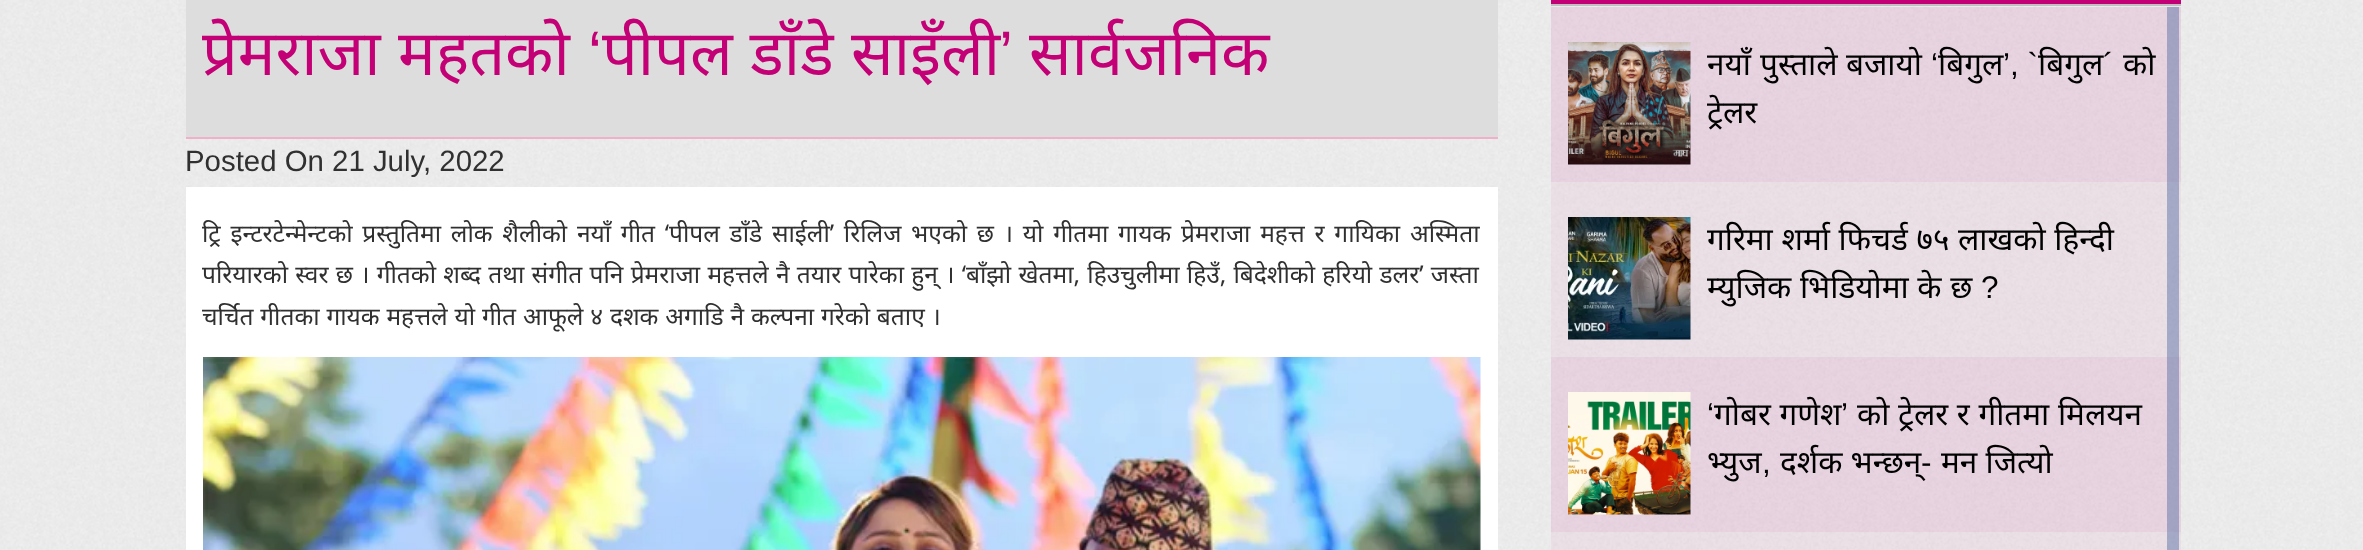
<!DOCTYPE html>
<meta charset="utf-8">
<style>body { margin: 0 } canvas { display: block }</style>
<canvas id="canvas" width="2363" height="550"></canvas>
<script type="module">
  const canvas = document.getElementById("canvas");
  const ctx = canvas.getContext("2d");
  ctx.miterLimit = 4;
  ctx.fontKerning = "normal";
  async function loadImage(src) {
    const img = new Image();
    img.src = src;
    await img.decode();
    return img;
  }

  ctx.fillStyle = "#ffffff";
  ctx.fillRect(0, 0, 2363, 550);
  ctx.drawImage(await loadImage("img1.png"), 0, 0, 2363, 550);
  ctx.fillStyle = "#dddddd";
  ctx.fillRect(186, 0, 1312, 137);
  ctx.fillStyle = "#f0b0ca";
  ctx.fillRect(186, 137, 1312, 2);
  ctx.wordSpacing = "1px";
  ctx.font = "63px Noto Sans";
  ctx.fillStyle = "#c40076";
  ctx.fillText("प्रेमराजा महतको", 202, 75);
  ctx.wordSpacing = "0px";
  ctx.font = "63px Liberation Sans";
  ctx.fillText("‘", 588, 75);
  ctx.wordSpacing = "1px";
  ctx.font = "63px Noto Sans";
  ctx.fillText("पीपल डाँडे साइँली", 602, 75);
  ctx.wordSpacing = "0px";
  ctx.fillText("सार्वजनिक", 1029, 75);
  ctx.font = "63px Liberation Sans";
  ctx.fillText("’", 999, 75);
  ctx.font = "29.4px Liberation Sans";
  ctx.fillStyle = "#303030";
  ctx.fillText("Posted On 21 July, 2022", 185, 171);
  ctx.fillStyle = "#ffffff";
  ctx.fillRect(186, 187, 1312, 363);
  ctx.wordSpacing = "3.4px";
  ctx.font = "24.5px Noto Sans";
  ctx.fillStyle = "#303030";
  ctx.fillText("ट्रि इन्टरटेन्मेन्टको प्रस्तुतिमा लोक शैलीको नयाँ गीत ‘पीपल डाँडे साईली’ रिलिज भएको छ । यो गीतमा गायक प्रेमराजा महत्त र गायिका अस्मिता", 202, 242);
  ctx.wordSpacing = "0.9px";
  ctx.fillText("परियारको स्वर छ । गीतको शब्द तथा संगीत पनि प्रेमराजा महत्तले नै तयार पारेका हुन् । ‘बाँझो खेतमा, हिउचुलीमा हिउँ, बिदेशीको हरियो डलर’ जस्ता", 202, 283);
  ctx.wordSpacing = "0.5px";
  ctx.fillText("चर्चित गीतका गायक महत्तले यो गीत आफूले ४ दशक अगाडि नै कल्पना गरेको बताए ।", 202, 325);
  ctx.drawImage(await loadImage("img2.png"), 203, 357, 1278, 193);
  ctx.fillStyle = "#c40076";
  ctx.fillRect(1551, 0, 630, 4);
  ctx.fillStyle = "#c0c0c0";
  ctx.fillRect(1551, 4, 630, 2);
  ctx.fillStyle = "rgba(196, 0, 118, 0.1)";
  ctx.fillRect(1551, 7, 630, 175);
  ctx.drawImage(await loadImage("img3.png"), 1568, 42, 123, 123);
  ctx.wordSpacing = "0px";
  ctx.font = "31.5px Noto Sans";
  ctx.fillStyle = "#000000";
  ctx.fillText("नयाँ", 1707, 75);
  ctx.fillText("पुस्ताले", 1760, 75);
  ctx.fillText("बजायो", 1846, 75);
  ctx.font = "31.5px Liberation Sans";
  ctx.fillText("‘", 1931, 75);
  ctx.font = "31.5px Noto Sans";
  ctx.fillText("बिगुल", 1938, 75);
  ctx.font = "31.5px Liberation Sans";
  ctx.fillText("’, `", 2003, 75);
  ctx.font = "31.5px Noto Sans";
  ctx.fillText("बिगुल", 2038, 75);
  ctx.font = "31.5px Liberation Sans";
  ctx.fillText("´", 2103, 75);
  ctx.font = "31.5px Noto Sans";
  ctx.fillText("को", 2123, 75);
  ctx.fillText("ट्रेलर", 1707, 123);
  ctx.fillStyle = "rgba(196, 0, 118, 0.05)";
  ctx.fillRect(1551, 182, 630, 175);
  ctx.drawImage(await loadImage("img4.png"), 1568, 217, 123, 123);
  ctx.wordSpacing = "0.5px";
  ctx.fillStyle = "#000000";
  ctx.fillText("गरिमा शर्मा फिचर्ड ७५ लाखको हिन्दी", 1707, 250);
  ctx.fillText("म्युजिक भिडियोमा के छ", 1707, 298);
  ctx.wordSpacing = "0px";
  ctx.font = "31.5px Liberation Sans";
  ctx.fillText("?", 1981, 298);
  ctx.fillStyle = "rgba(196, 0, 118, 0.1)";
  ctx.fillRect(1551, 357, 630, 175);
  ctx.drawImage(await loadImage("img5.png"), 1568, 392, 123, 123);
  ctx.fillStyle = "#000000";
  ctx.fillText("‘", 1707, 425);
  ctx.wordSpacing = "0.5px";
  ctx.font = "31.5px Noto Sans";
  ctx.fillText("गोबर गणेश", 1714, 425);
  ctx.fillText("को ट्रेलर र गीतमा मिलयन", 1857, 425);
  ctx.wordSpacing = "0px";
  ctx.font = "31.5px Liberation Sans";
  ctx.fillText("’", 1841, 425);
  ctx.font = "31.5px Noto Sans";
  ctx.fillText("भ्युज", 1707, 473);
  ctx.fillText("दर्शक भन्छन्", 1780, 473);
  ctx.font = "31.5px Liberation Sans";
  ctx.fillText("-", 1921, 473);
  ctx.font = "31.5px Noto Sans";
  ctx.fillText("मन जित्यो", 1941, 473);
  ctx.font = "31.5px Liberation Sans";
  ctx.fillText(",", 1762, 473);
  ctx.fillStyle = "rgba(196, 0, 118, 0.05)";
  ctx.fillRect(1551, 532, 630, 18);
  ctx.fillStyle = "rgba(59, 89, 152, 0.4)";
  ctx.fillRect(2167, 7, 12, 543);
</script>
